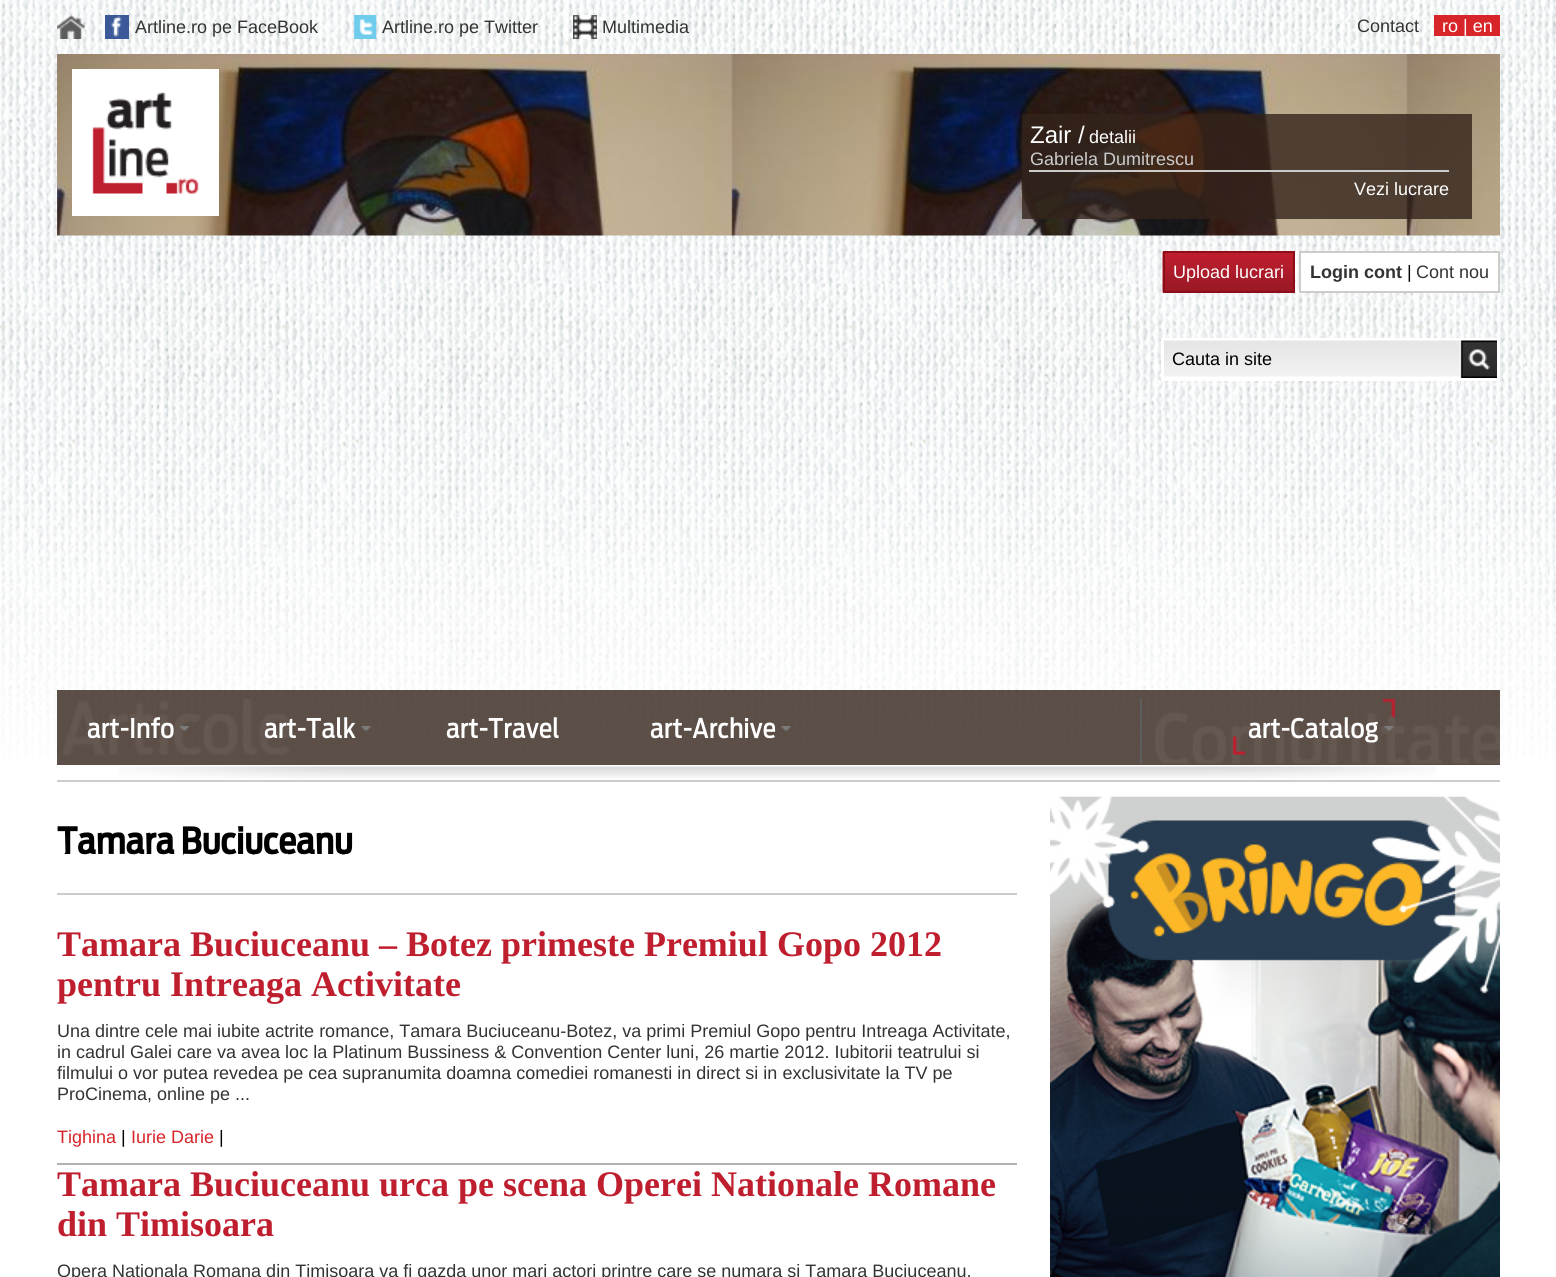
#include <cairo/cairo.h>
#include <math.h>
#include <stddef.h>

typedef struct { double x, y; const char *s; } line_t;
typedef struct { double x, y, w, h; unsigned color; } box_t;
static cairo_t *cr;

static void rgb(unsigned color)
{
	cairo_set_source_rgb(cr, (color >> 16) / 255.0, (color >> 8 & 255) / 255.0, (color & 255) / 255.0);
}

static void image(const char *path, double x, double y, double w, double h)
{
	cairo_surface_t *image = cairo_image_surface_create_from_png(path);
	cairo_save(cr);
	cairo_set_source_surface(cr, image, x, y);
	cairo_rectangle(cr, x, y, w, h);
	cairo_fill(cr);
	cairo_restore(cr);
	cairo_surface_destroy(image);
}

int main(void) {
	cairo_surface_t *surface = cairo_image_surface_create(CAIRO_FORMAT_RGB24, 1556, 1277);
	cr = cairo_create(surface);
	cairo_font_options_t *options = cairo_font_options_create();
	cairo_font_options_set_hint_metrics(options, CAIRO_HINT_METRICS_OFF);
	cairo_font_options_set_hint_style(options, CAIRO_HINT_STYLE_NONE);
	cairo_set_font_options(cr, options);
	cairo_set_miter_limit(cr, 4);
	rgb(0xffffff);
	cairo_paint(cr);
	image("img/1.png", 0, 0, 1556, 759);
	image("img/2.png", 57, 15, 29, 24);
	image("img/3.png", 105, 15, 24, 24);
	image("img/4.png", 353, 15, 24, 24);
	image("img/5.png", 573, 15, 24, 24);
	rgb(0xd82529);
	cairo_rectangle(cr, 1434, 15, 66, 21);
	cairo_fill(cr);
	image("img/6.png", 57, 54, 1443, 182);
	image("img/7.png", 72, 69, 147, 147);
	cairo_set_source_rgba(cr, 0.204, 0.137, 0.106, 0.8);
	cairo_rectangle(cr, 1022, 114, 450, 105);
	cairo_fill(cr);
	rgb(0xcecccb);
	cairo_rectangle(cr, 1029, 170, 420, 2);
	cairo_fill(cr);
	image("img/8.png", 1162, 250, 133, 43);
	cairo_rectangle(cr, 1164, 252, 130, 40);
	rgb(0x8d0e1a);
	cairo_stroke(cr);
	rgb(0xffffff);
	cairo_rectangle(cr, 1300, 252, 199, 40);
	cairo_fill_preserve(cr);
	rgb(0xcecccb);
	cairo_stroke(cr);
	rgb(0xffffff);
	cairo_rectangle(cr, 1161, 338, 339, 43);
	cairo_fill(cr);
	image("img/9.png", 1164, 340, 296, 37);
	image("img/10.png", 1460, 340, 37, 38);
	cairo_set_source_rgba(cr, 0.204, 0.137, 0.106, 0.8);
	cairo_rectangle(cr, 57, 690, 1083, 75);
	cairo_fill(cr);
	image("img/11.png", 62, 699, 228, 56);
	image("img/12.png", 180, 726, 9, 5);
	image("img/13.png", 361, 726, 10, 5);
	image("img/14.png", 781, 726, 10, 5);
	cairo_rectangle(cr, 1140, 690, 360, 75);
	cairo_fill(cr);
	image("img/15.png", 1155, 698, 345, 66);
	rgb(0x5d5d5d);
	cairo_rectangle(cr, 1140, 698, 2, 66);
	cairo_fill(cr);
	image("img/16.png", 1384, 726, 10, 5);
	image("img/17.png", 119, 766, 1317, 13);
	{
		static const box_t items[] = {
			{57, 780, 1443, 2, 0xcecccb},
			{57, 893, 960, 2, 0xcecccb},
			{57, 1163, 960, 2, 0xb2b2b2},
		};
		for (size_t i = 0; i < sizeof items / sizeof *items; i++) {
			rgb(items[i].color);
			cairo_rectangle(cr, items[i].x, items[i].y, items[i].w, items[i].h);
			cairo_fill(cr);
		}
	}
	image("img/18.png", 1050, 796, 450, 481);
	cairo_select_font_face(cr, "Liberation Sans", CAIRO_FONT_SLANT_NORMAL, CAIRO_FONT_WEIGHT_NORMAL);
	cairo_set_font_size(cr, 18);
	rgb(0x333333);
	{
		static const line_t items[] = {
			{135, 33, "Artline.ro pe FaceBook"},
			{382, 33, "Artline.ro pe Twitter"},
			{602, 33, "Multimedia"},
			{1357, 32, "Contact"},
		};
		for (size_t i = 0; i < sizeof items / sizeof *items; i++) {
			cairo_move_to(cr, items[i].x, items[i].y);
			cairo_show_text(cr, items[i].s);
		}
	}
	rgb(0xffffff);
	cairo_move_to(cr, 1442, 32);
	cairo_show_text(cr, "ro | en");
	cairo_set_font_size(cr, 24);
	cairo_move_to(cr, 1030, 143);
	cairo_show_text(cr, "Zair /");
	cairo_set_font_size(cr, 18);
	cairo_move_to(cr, 1089, 143);
	cairo_show_text(cr, "detalii");
	rgb(0xcccccc);
	cairo_move_to(cr, 1030, 165);
	cairo_show_text(cr, "Gabriela Dumitrescu");
	rgb(0xffffff);
	cairo_move_to(cr, 1354, 195);
	cairo_show_text(cr, "Vezi lucrare");
	cairo_move_to(cr, 1173, 278);
	cairo_show_text(cr, "Upload lucrari");
	cairo_select_font_face(cr, "Liberation Sans", CAIRO_FONT_SLANT_NORMAL, CAIRO_FONT_WEIGHT_BOLD);
	rgb(0x333333);
	cairo_move_to(cr, 1310, 278);
	cairo_show_text(cr, "Login cont");
	cairo_select_font_face(cr, "Liberation Sans", CAIRO_FONT_SLANT_NORMAL, CAIRO_FONT_WEIGHT_NORMAL);
	rgb(0x000000);
	cairo_move_to(cr, 1407, 278);
	cairo_show_text(cr, "|");
	rgb(0x333333);
	cairo_move_to(cr, 1416, 278);
	cairo_show_text(cr, "Cont nou");
	rgb(0x000000);
	cairo_move_to(cr, 1172, 365);
	cairo_show_text(cr, "Cauta in site");
	cairo_select_font_face(cr, "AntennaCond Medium", CAIRO_FONT_SLANT_NORMAL, CAIRO_FONT_WEIGHT_NORMAL);
	cairo_set_font_size(cr, 27);
	rgb(0xffffff);
	{
		static const line_t items[] = {
			{87, 738, "art-Info"},
			{264, 738, "art-Talk"},
			{446, 738, "art-Travel"},
			{650, 738, "art-Archive"},
			{1248, 738, "art-Catalog"},
		};
		for (size_t i = 0; i < sizeof items / sizeof *items; i++) {
			cairo_move_to(cr, items[i].x, items[i].y);
			cairo_show_text(cr, items[i].s);
		}
	}
	cairo_select_font_face(cr, "AntennaCond", CAIRO_FONT_SLANT_NORMAL, CAIRO_FONT_WEIGHT_BOLD);
	cairo_set_font_size(cr, 36);
	rgb(0x000000);
	cairo_move_to(cr, 57, 854);
	cairo_show_text(cr, "Tamara Buciuceanu");
	cairo_select_font_face(cr, "Liberation Serif", CAIRO_FONT_SLANT_NORMAL, CAIRO_FONT_WEIGHT_BOLD);
	rgb(0xbf1e2e);
	cairo_move_to(cr, 57, 956);
	cairo_show_text(cr, "Tamara Buciuceanu – Botez primeste Premiul Gopo 2012");
	cairo_move_to(cr, 57, 996);
	cairo_show_text(cr, "pentru Intreaga Activitate");
	cairo_select_font_face(cr, "Liberation Sans", CAIRO_FONT_SLANT_NORMAL, CAIRO_FONT_WEIGHT_NORMAL);
	cairo_set_font_size(cr, 18);
	rgb(0x333333);
	{
		static const line_t items[] = {
			{57, 1037, "Una dintre cele mai iubite actrite romance, Tamara Buciuceanu-Botez, va primi Premiul Gopo pentru Intreaga Activitate,"},
			{57, 1058, "in cadrul Galei care va avea loc la Platinum Bussiness & Convention Center luni, 26 martie 2012. Iubitorii teatrului si"},
			{57, 1079, "filmului o vor putea revedea pe cea supranumita doamna comediei romanesti in direct si in exclusivitate la TV pe"},
			{57, 1100, "ProCinema, online pe ..."},
		};
		for (size_t i = 0; i < sizeof items / sizeof *items; i++) {
			cairo_move_to(cr, items[i].x, items[i].y);
			cairo_show_text(cr, items[i].s);
		}
	}
	rgb(0xd82529);
	cairo_move_to(cr, 57, 1143);
	cairo_show_text(cr, "Tighina");
	rgb(0x000000);
	cairo_move_to(cr, 121, 1143);
	cairo_show_text(cr, "|");
	rgb(0xd82529);
	cairo_move_to(cr, 131, 1143);
	cairo_show_text(cr, "Iurie Darie");
	rgb(0x000000);
	cairo_move_to(cr, 219, 1143);
	cairo_show_text(cr, "|");
	cairo_select_font_face(cr, "Liberation Serif", CAIRO_FONT_SLANT_NORMAL, CAIRO_FONT_WEIGHT_BOLD);
	cairo_set_font_size(cr, 36);
	rgb(0xbf1e2e);
	cairo_move_to(cr, 57, 1196);
	cairo_show_text(cr, "Tamara Buciuceanu urca pe scena Operei Nationale Romane");
	cairo_move_to(cr, 57, 1236);
	cairo_show_text(cr, "din Timisoara");
	cairo_select_font_face(cr, "Liberation Sans", CAIRO_FONT_SLANT_NORMAL, CAIRO_FONT_WEIGHT_NORMAL);
	cairo_set_font_size(cr, 18);
	rgb(0x333333);
	cairo_move_to(cr, 57, 1277);
	cairo_show_text(cr, "Opera Nationala Romana din Timisoara va fi gazda unor mari actori printre care se numara si Tamara Buciuceanu,");
	cairo_surface_write_to_png(surface, "page.png");
	cairo_font_options_destroy(options);
	cairo_destroy(cr);
	cairo_surface_destroy(surface);
	return 0;
}
